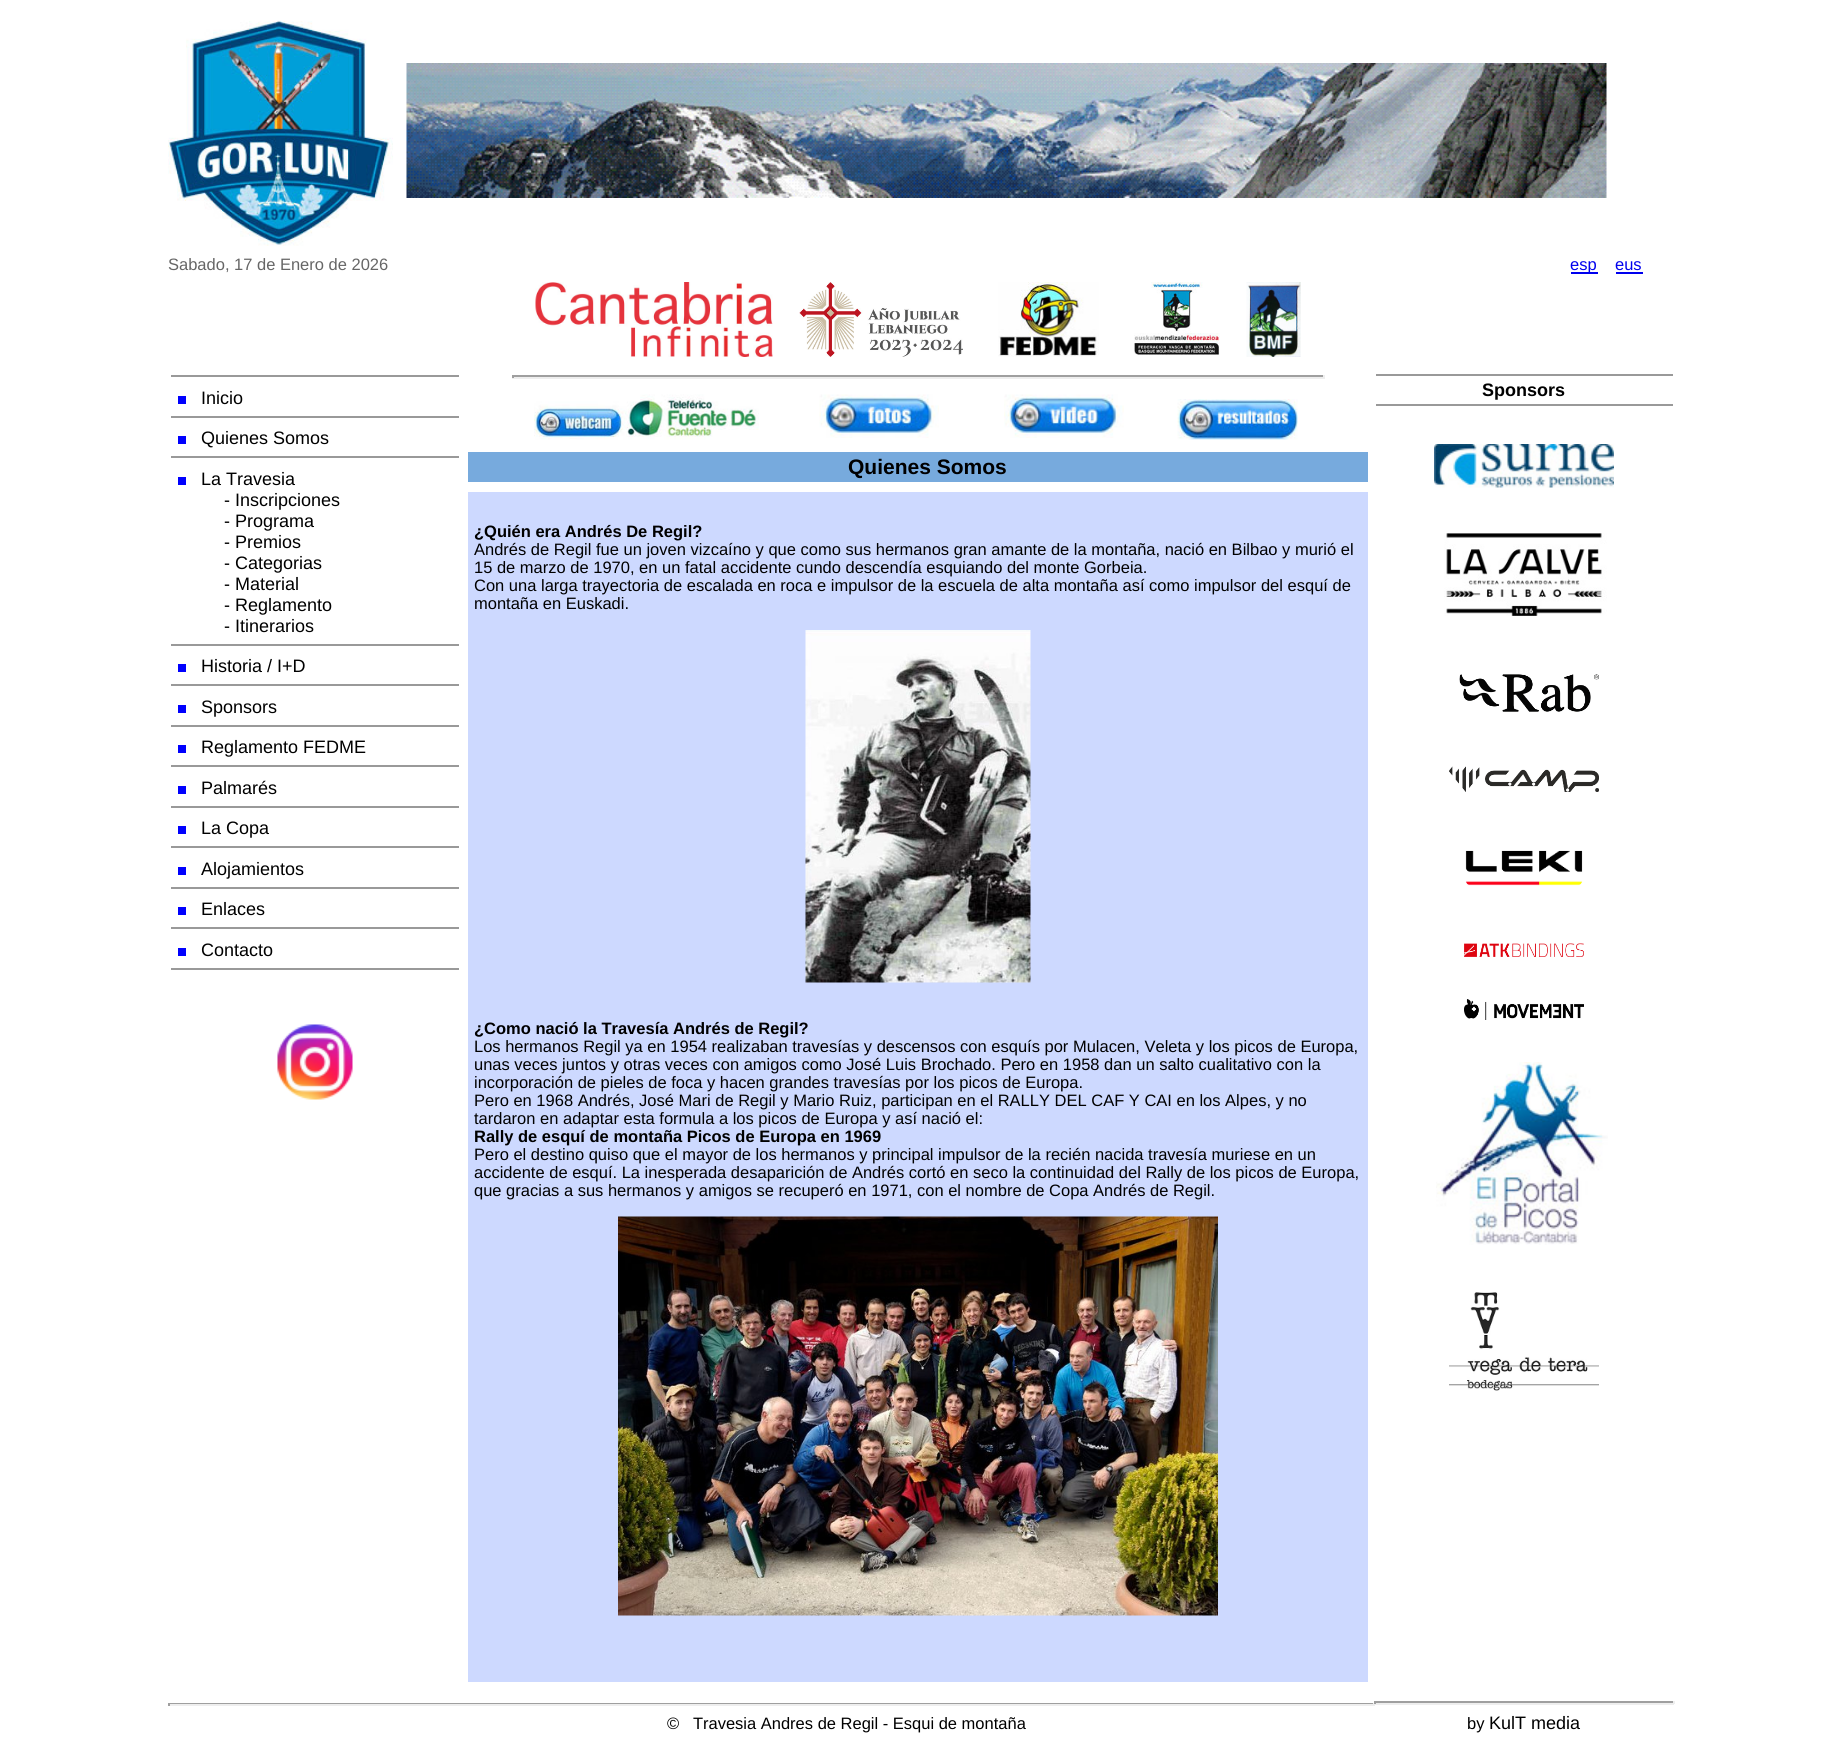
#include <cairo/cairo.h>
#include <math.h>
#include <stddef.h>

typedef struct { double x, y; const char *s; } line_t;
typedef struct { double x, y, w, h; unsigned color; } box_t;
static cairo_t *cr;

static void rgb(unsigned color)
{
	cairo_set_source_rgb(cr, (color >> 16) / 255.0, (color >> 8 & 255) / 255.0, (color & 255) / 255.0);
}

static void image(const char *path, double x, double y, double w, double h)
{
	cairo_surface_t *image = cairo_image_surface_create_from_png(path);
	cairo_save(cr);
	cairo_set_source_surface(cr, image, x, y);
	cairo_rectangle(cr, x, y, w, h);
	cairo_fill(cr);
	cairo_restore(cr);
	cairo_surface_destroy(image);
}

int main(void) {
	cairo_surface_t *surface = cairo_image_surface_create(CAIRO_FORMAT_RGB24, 1842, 1760);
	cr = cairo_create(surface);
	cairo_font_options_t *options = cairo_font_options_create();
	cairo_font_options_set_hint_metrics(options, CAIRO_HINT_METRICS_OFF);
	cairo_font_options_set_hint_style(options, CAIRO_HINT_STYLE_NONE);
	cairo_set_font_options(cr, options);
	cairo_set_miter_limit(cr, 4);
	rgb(0xffffff);
	cairo_paint(cr);
	image("img/1.png", 168, 20, 225, 226);
	image("img/2.png", 406, 63, 1201, 135);
	{
		static const box_t items[] = {
			{1571, 272, 27, 2, 0x0000ee},
			{1616, 272, 27, 2, 0x0000ee},
			{171, 375, 288, 2, 0x999999},
			{171, 416, 288, 2, 0x999999},
			{178, 396, 8, 8, 0x0000fe},
			{171, 456, 288, 2, 0x999999},
			{178, 436, 8, 8, 0x0000fe},
			{171, 644, 288, 2, 0x999999},
			{178, 477, 8, 8, 0x0000fe},
			{171, 684, 288, 2, 0x999999},
			{178, 664, 8, 8, 0x0000fe},
			{171, 725, 288, 2, 0x999999},
			{178, 705, 8, 8, 0x0000fe},
			{171, 765, 288, 2, 0x999999},
			{178, 745, 8, 8, 0x0000fe},
			{171, 806, 288, 2, 0x999999},
			{178, 786, 8, 8, 0x0000fe},
			{171, 846, 288, 2, 0x999999},
			{178, 826, 8, 8, 0x0000fe},
			{171, 887, 288, 2, 0x999999},
			{178, 867, 8, 8, 0x0000fe},
			{171, 927, 288, 2, 0x999999},
			{178, 907, 8, 8, 0x0000fe},
			{171, 968, 288, 2, 0x999999},
			{178, 948, 8, 8, 0x0000fe},
		};
		for (size_t i = 0; i < sizeof items / sizeof *items; i++) {
			rgb(items[i].color);
			cairo_rectangle(cr, items[i].x, items[i].y, items[i].w, items[i].h);
			cairo_fill(cr);
		}
	}
	image("img/3.png", 277, 1024, 76, 76);
	image("img/4.png", 535, 282, 238, 75);
	image("img/5.png", 799, 282, 164, 75);
	image("img/6.png", 998, 282, 101, 75);
	image("img/7.png", 1134, 282, 86, 73);
	image("img/8.png", 1246, 282, 55, 75);
	{
		static const box_t items[] = {
			{512, 375, 813, 2, 0x9f9f9f},
			{1323, 375, 2, 3, 0xeeeeee},
			{512, 377, 813, 2, 0xeeeeee},
			{512, 375, 2, 3, 0x9f9f9f},
		};
		for (size_t i = 0; i < sizeof items / sizeof *items; i++) {
			rgb(items[i].color);
			cairo_rectangle(cr, items[i].x, items[i].y, items[i].w, items[i].h);
			cairo_fill(cr);
		}
	}
	image("img/9.png", 534, 394, 225, 46);
	image("img/10.png", 819, 394, 120, 44);
	image("img/11.png", 1004, 394, 120, 44);
	image("img/12.png", 1177, 399, 121, 41);
	rgb(0x77aadd);
	cairo_rectangle(cr, 468, 452, 900, 30);
	cairo_fill(cr);
	rgb(0xcdd9ff);
	cairo_rectangle(cr, 468, 492, 900, 1190);
	cairo_fill(cr);
	image("img/13.png", 805, 630, 226, 353);
	image("img/14.png", 618, 1216, 600, 400);
	rgb(0x999999);
	cairo_rectangle(cr, 1376, 374, 297, 2);
	cairo_fill(cr);
	cairo_rectangle(cr, 1376, 404, 297, 2);
	cairo_fill(cr);
	image("img/15.png", 1434, 444, 180, 44);
	image("img/16.png", 1444, 533, 163, 83);
	image("img/17.png", 1459, 674, 140, 38);
	image("img/18.png", 1449, 766, 150, 26);
	image("img/19.png", 1465, 850, 118, 36);
	image("img/20.png", 1464, 943, 120, 14);
	image("img/21.png", 1464, 999, 120, 21);
	image("img/22.png", 1436, 1062, 172, 183);
	image("img/23.png", 1449, 1292, 150, 99);
	{
		static const box_t items[] = {
			{168, 1703, 1206, 1, 0x9f9f9f},
			{1373, 1703, 2, 3, 0xeeeeee},
			{168, 1704, 1206, 2, 0xeeeeee},
			{168, 1703, 2, 3, 0x9f9f9f},
			{1374, 1701, 300, 2, 0x9f9f9f},
			{1673, 1701, 2, 3, 0xeeeeee},
			{1374, 1703, 300, 2, 0xeeeeee},
			{1374, 1701, 2, 3, 0x9f9f9f},
		};
		for (size_t i = 0; i < sizeof items / sizeof *items; i++) {
			rgb(items[i].color);
			cairo_rectangle(cr, items[i].x, items[i].y, items[i].w, items[i].h);
			cairo_fill(cr);
		}
	}
	cairo_select_font_face(cr, "Liberation Sans", CAIRO_FONT_SLANT_NORMAL, CAIRO_FONT_WEIGHT_NORMAL);
	cairo_set_font_size(cr, 16.5);
	rgb(0x666666);
	cairo_move_to(cr, 168, 270);
	cairo_show_text(cr, "Sabado, 17 de Enero de 2026");
	rgb(0x0000ee);
	cairo_move_to(cr, 1570, 270);
	cairo_show_text(cr, "esp");
	cairo_move_to(cr, 1615, 270);
	cairo_show_text(cr, "eus");
	cairo_set_font_size(cr, 18);
	rgb(0x000000);
	{
		static const line_t items[] = {
			{201, 404, "Inicio"},
			{201, 444, "Quienes Somos"},
			{201, 485, "La Travesia"},
			{224, 506, "- Inscripciones"},
			{224, 527, "- Programa"},
			{224, 548, "- Premios"},
			{224, 569, "- Categorias"},
			{224, 590, "- Material"},
			{224, 611, "- Reglamento"},
			{224, 632, "- Itinerarios"},
			{201, 672, "Historia / I+D"},
			{201, 713, "Sponsors"},
			{201, 753, "Reglamento FEDME"},
			{201, 794, "Palmarés"},
			{201, 834, "La Copa"},
			{201, 875, "Alojamientos"},
			{201, 915, "Enlaces"},
			{201, 956, "Contacto"},
		};
		for (size_t i = 0; i < sizeof items / sizeof *items; i++) {
			cairo_move_to(cr, items[i].x, items[i].y);
			cairo_show_text(cr, items[i].s);
		}
	}
	cairo_select_font_face(cr, "Liberation Sans", CAIRO_FONT_SLANT_NORMAL, CAIRO_FONT_WEIGHT_BOLD);
	cairo_set_font_size(cr, 21);
	cairo_move_to(cr, 848, 474);
	cairo_show_text(cr, "Quienes Somos");
	cairo_set_font_size(cr, 16.5);
	cairo_move_to(cr, 474, 537);
	cairo_show_text(cr, "¿Quién era Andrés De Regil?");
	cairo_select_font_face(cr, "Liberation Sans", CAIRO_FONT_SLANT_NORMAL, CAIRO_FONT_WEIGHT_NORMAL);
	{
		static const line_t items[] = {
			{474, 555, "Andrés de Regil fue un joven vizcaíno y que como sus hermanos gran amante de la montaña, nació en Bilbao y murió el"},
			{474, 573, "15 de marzo de 1970, en un fatal accidente cundo descendía esquiando del monte Gorbeia."},
			{474, 591, "Con una larga trayectoria de escalada en roca e impulsor de la escuela de alta montaña así como impulsor del esquí de"},
			{474, 609, "montaña en Euskadi."},
		};
		for (size_t i = 0; i < sizeof items / sizeof *items; i++) {
			cairo_move_to(cr, items[i].x, items[i].y);
			cairo_show_text(cr, items[i].s);
		}
	}
	cairo_select_font_face(cr, "Liberation Sans", CAIRO_FONT_SLANT_NORMAL, CAIRO_FONT_WEIGHT_BOLD);
	cairo_move_to(cr, 474, 1034);
	cairo_show_text(cr, "¿Como nació la Travesía Andrés de Regil?");
	cairo_select_font_face(cr, "Liberation Sans", CAIRO_FONT_SLANT_NORMAL, CAIRO_FONT_WEIGHT_NORMAL);
	{
		static const line_t items[] = {
			{474, 1052, "Los hermanos Regil ya en 1954 realizaban travesías y descensos con esquís por Mulacen, Veleta y los picos de Europa,"},
			{474, 1070, "unas veces juntos y otras veces con amigos como José Luis Brochado. Pero en 1958 dan un salto cualitativo con la"},
			{474, 1088, "incorporación de pieles de foca y hacen grandes travesías por los picos de Europa."},
			{474, 1106, "Pero en 1968 Andrés, José Mari de Regil y Mario Ruiz, participan en el RALLY DEL CAF Y CAI en los Alpes, y no"},
			{474, 1124, "tardaron en adaptar esta formula a los picos de Europa y así nació el:"},
		};
		for (size_t i = 0; i < sizeof items / sizeof *items; i++) {
			cairo_move_to(cr, items[i].x, items[i].y);
			cairo_show_text(cr, items[i].s);
		}
	}
	cairo_select_font_face(cr, "Liberation Sans", CAIRO_FONT_SLANT_NORMAL, CAIRO_FONT_WEIGHT_BOLD);
	cairo_move_to(cr, 474, 1142);
	cairo_show_text(cr, "Rally de esquí de montaña Picos de Europa en 1969");
	cairo_select_font_face(cr, "Liberation Sans", CAIRO_FONT_SLANT_NORMAL, CAIRO_FONT_WEIGHT_NORMAL);
	{
		static const line_t items[] = {
			{474, 1160, "Pero el destino quiso que el mayor de los hermanos y principal impulsor de la recién nacida travesía muriese en un"},
			{474, 1178, "accidente de esquí. La inesperada desaparición de Andrés cortó en seco la continuidad del Rally de los picos de Europa,"},
			{474, 1196, "que gracias a sus hermanos y amigos se recuperó en 1971, con el nombre de Copa Andrés de Regil."},
		};
		for (size_t i = 0; i < sizeof items / sizeof *items; i++) {
			cairo_move_to(cr, items[i].x, items[i].y);
			cairo_show_text(cr, items[i].s);
		}
	}
	cairo_select_font_face(cr, "Liberation Sans", CAIRO_FONT_SLANT_NORMAL, CAIRO_FONT_WEIGHT_BOLD);
	cairo_set_font_size(cr, 18);
	cairo_move_to(cr, 1482, 396);
	cairo_show_text(cr, "Sponsors");
	cairo_select_font_face(cr, "Liberation Sans", CAIRO_FONT_SLANT_NORMAL, CAIRO_FONT_WEIGHT_NORMAL);
	cairo_set_font_size(cr, 16.5);
	cairo_move_to(cr, 667, 1729);
	cairo_show_text(cr, "©   Travesia Andres de Regil - Esqui de montaña");
	cairo_move_to(cr, 1467, 1729);
	cairo_show_text(cr, "by");
	cairo_set_font_size(cr, 18);
	cairo_move_to(cr, 1489, 1729);
	cairo_show_text(cr, "KulT media");
	cairo_surface_write_to_png(surface, "page.png");
	cairo_font_options_destroy(options);
	cairo_destroy(cr);
	cairo_surface_destroy(surface);
	return 0;
}
